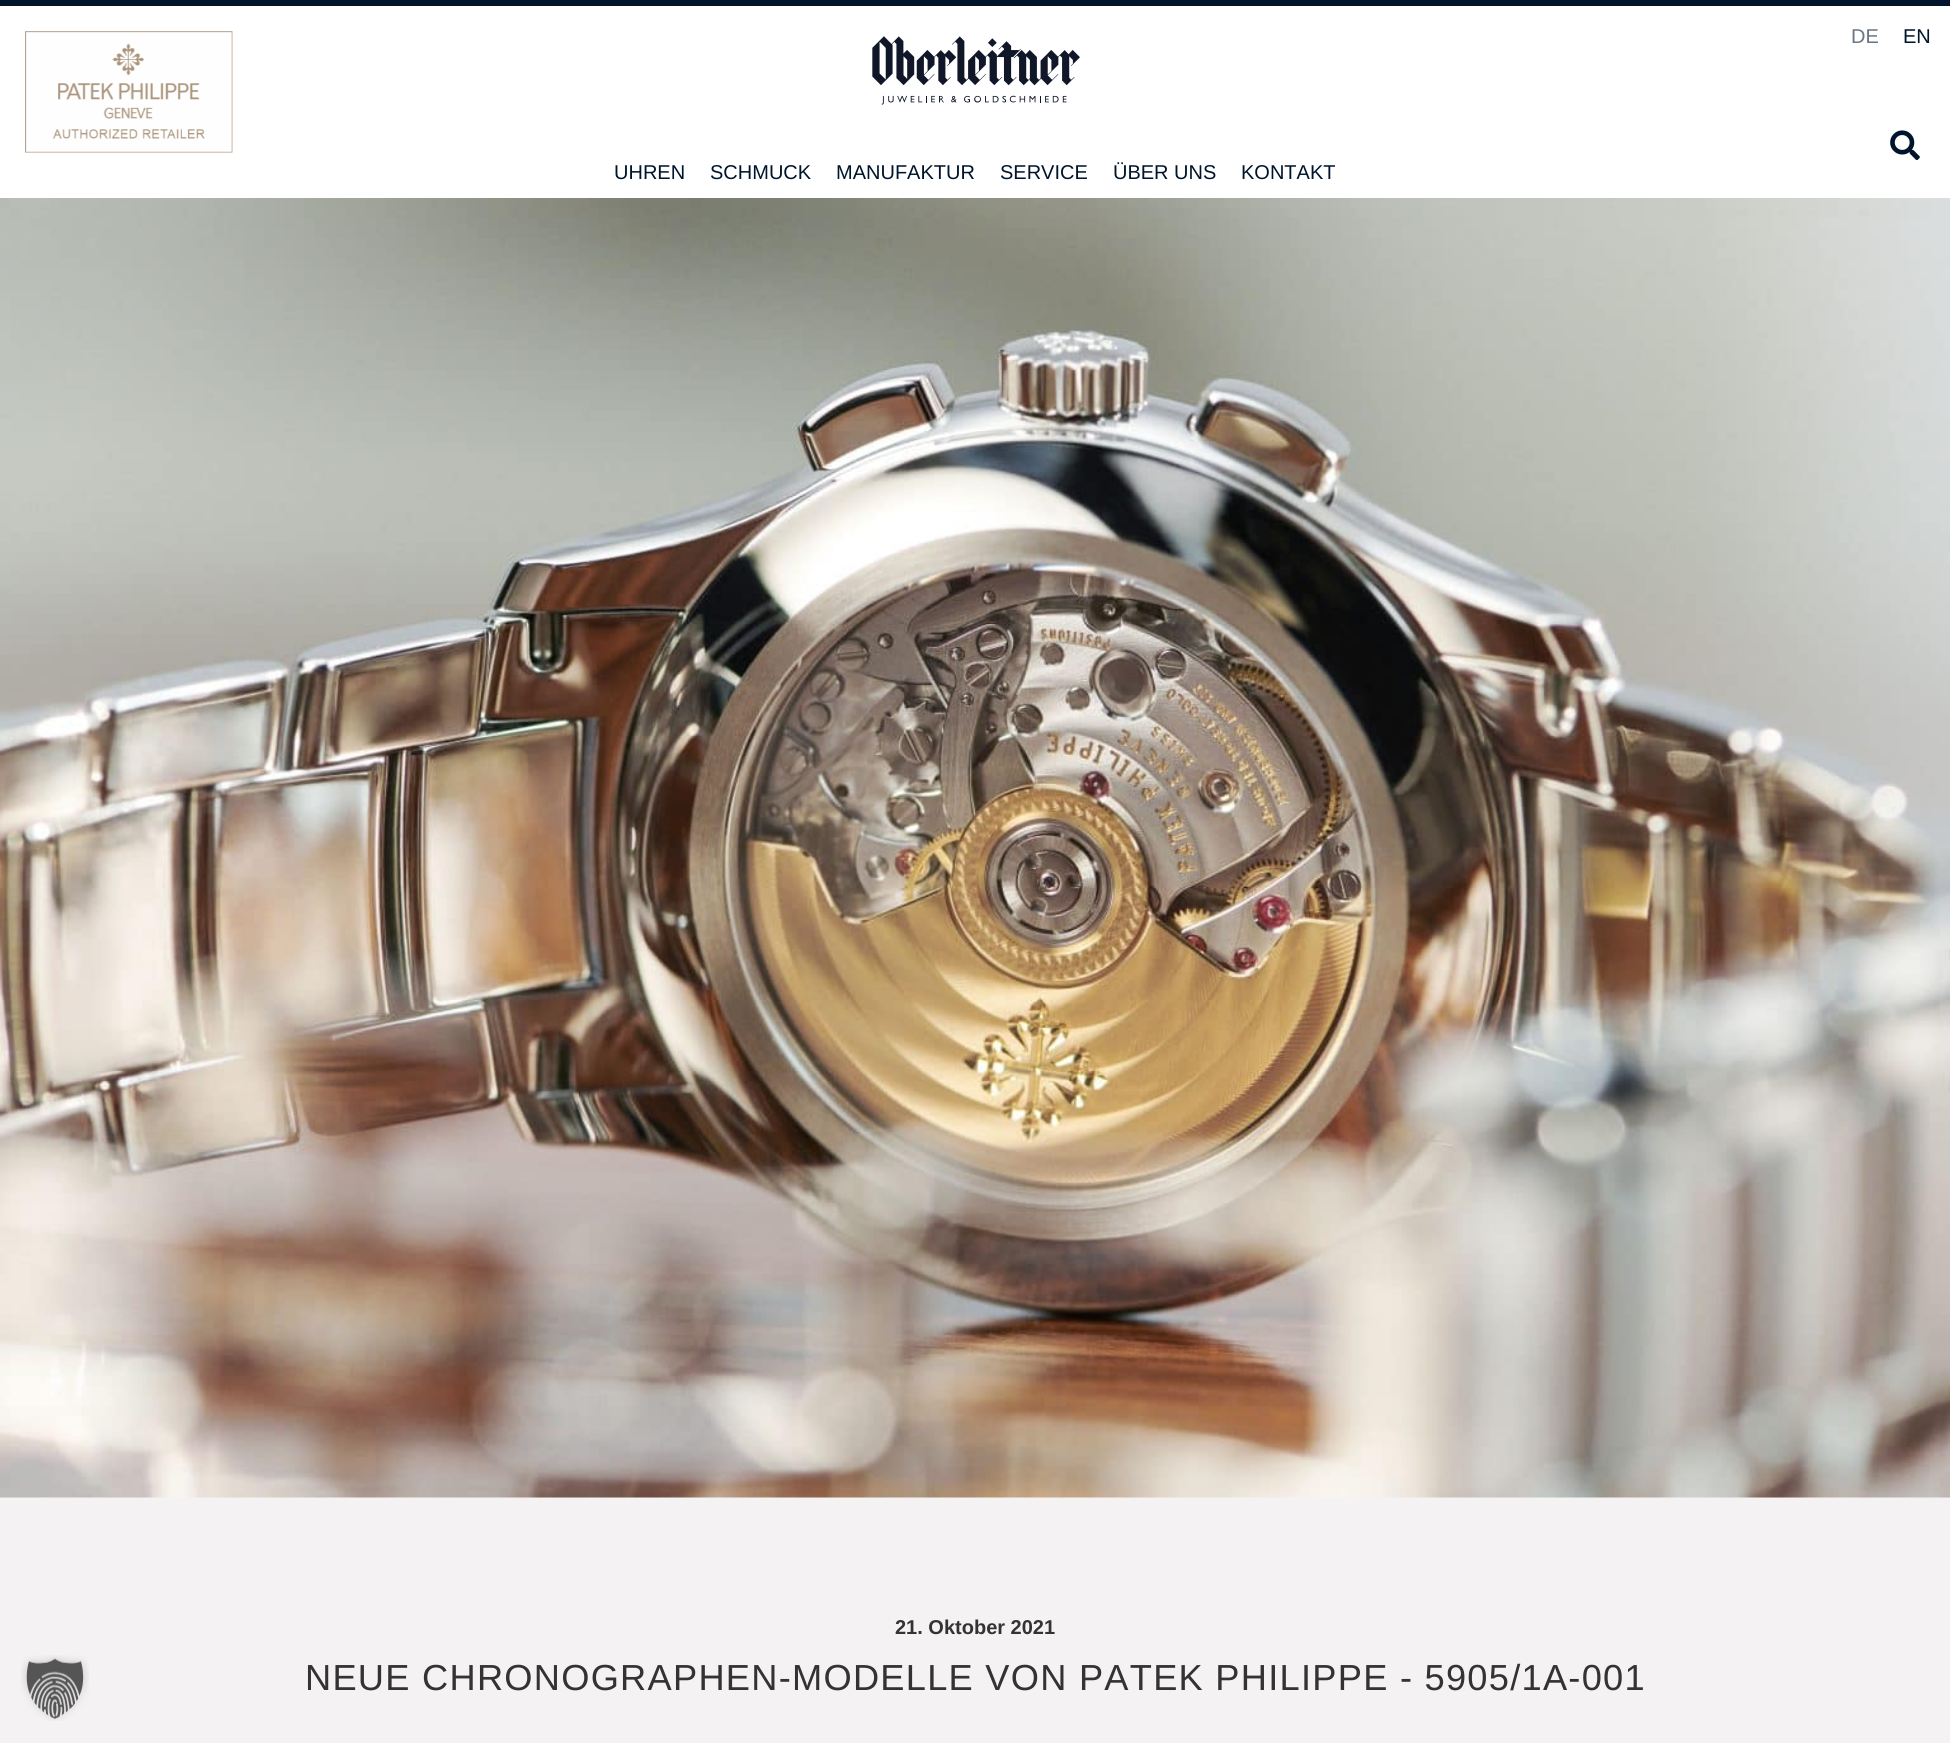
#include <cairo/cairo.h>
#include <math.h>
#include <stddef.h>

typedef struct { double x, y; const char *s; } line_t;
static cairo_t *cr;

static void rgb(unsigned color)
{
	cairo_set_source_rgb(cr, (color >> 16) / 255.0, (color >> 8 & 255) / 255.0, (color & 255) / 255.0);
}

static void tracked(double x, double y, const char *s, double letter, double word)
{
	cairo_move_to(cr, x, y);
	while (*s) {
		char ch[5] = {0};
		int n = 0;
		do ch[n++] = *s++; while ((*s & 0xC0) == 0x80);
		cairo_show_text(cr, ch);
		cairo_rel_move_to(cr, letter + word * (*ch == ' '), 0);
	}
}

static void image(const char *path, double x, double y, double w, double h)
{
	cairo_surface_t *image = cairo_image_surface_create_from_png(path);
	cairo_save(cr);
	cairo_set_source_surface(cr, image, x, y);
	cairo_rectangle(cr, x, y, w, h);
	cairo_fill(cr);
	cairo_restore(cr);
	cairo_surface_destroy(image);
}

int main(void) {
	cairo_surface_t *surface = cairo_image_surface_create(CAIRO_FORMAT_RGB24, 1950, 1743);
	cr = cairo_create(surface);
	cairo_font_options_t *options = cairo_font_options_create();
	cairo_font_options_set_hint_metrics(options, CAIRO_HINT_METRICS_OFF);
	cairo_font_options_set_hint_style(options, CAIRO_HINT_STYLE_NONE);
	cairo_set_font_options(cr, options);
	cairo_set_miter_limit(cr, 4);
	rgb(0xf4f2f2);
	cairo_paint(cr);
	rgb(0xffffff);
	cairo_rectangle(cr, 0, 6, 1950, 192);
	cairo_fill(cr);
	rgb(0x00152b);
	cairo_rectangle(cr, 0, 0, 1950, 6);
	cairo_fill(cr);
	image("img/1.png", 25, 31, 208, 122);
	image("img/2.png", 872, 36, 208, 69);
	image("img/3.png", 1890, 130, 30, 31);
	image("img/4.png", 21, 1655, 68, 66);
	image("img/5.png", 0, 198, 1950, 1300);
	cairo_select_font_face(cr, "Liberation Sans", CAIRO_FONT_SLANT_NORMAL, CAIRO_FONT_WEIGHT_NORMAL);
	cairo_set_font_size(cr, 20);
	rgb(0x6b7784);
	cairo_move_to(cr, 1851, 43);
	cairo_show_text(cr, "DE");
	rgb(0x00152b);
	{
		static const line_t items[] = {
			{1903, 43, "EN"},
			{614, 179, "UHREN"},
			{710, 179, "SCHMUCK"},
			{836, 179, "MANUFAKTUR"},
			{1000, 179, "SERVICE"},
			{1113, 179, "ÜBER UNS"},
			{1241, 179, "KONTAKT"},
		};
		for (size_t i = 0; i < sizeof items / sizeof *items; i++) {
			cairo_move_to(cr, items[i].x, items[i].y);
			cairo_show_text(cr, items[i].s);
		}
	}
	cairo_select_font_face(cr, "Liberation Sans", CAIRO_FONT_SLANT_NORMAL, CAIRO_FONT_WEIGHT_BOLD);
	rgb(0x333333);
	cairo_move_to(cr, 895, 1634);
	cairo_show_text(cr, "21. Oktober 2021");
	cairo_select_font_face(cr, "Liberation Sans", CAIRO_FONT_SLANT_NORMAL, CAIRO_FONT_WEIGHT_NORMAL);
	cairo_set_font_size(cr, 36.25);
	tracked(305, 1690, "NEUE CHRONOGRAPHEN-MODELLE VON PATEK PHILIPPE - 5905/1A-001", 1.25, 0);
	cairo_surface_write_to_png(surface, "page.png");
	cairo_font_options_destroy(options);
	cairo_destroy(cr);
	cairo_surface_destroy(surface);
	return 0;
}
